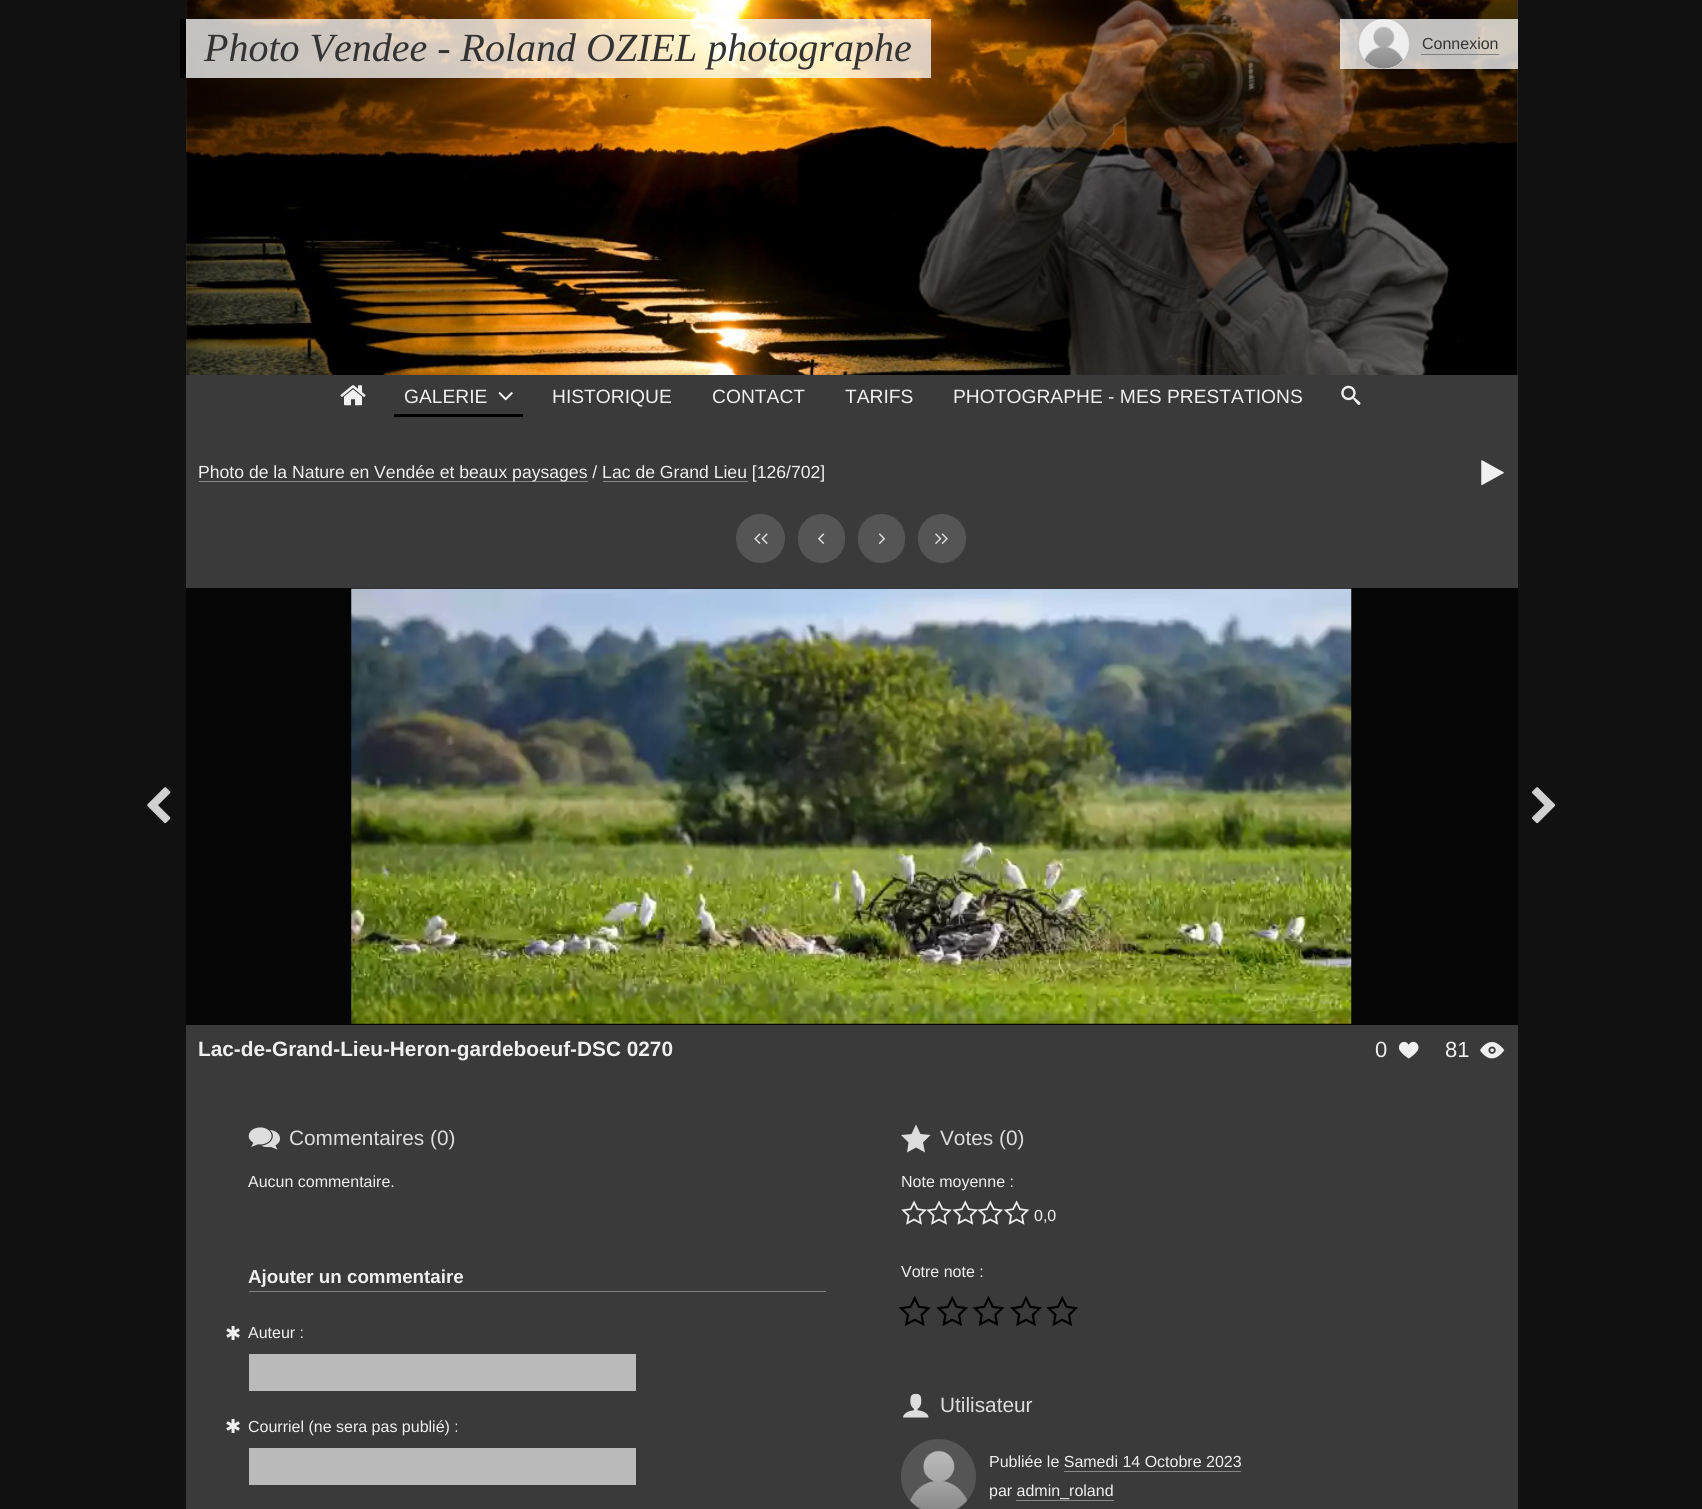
#include <cairo/cairo.h>
#include <math.h>
#include <stddef.h>

typedef struct { double x, y; const char *s; } line_t;
typedef struct { double x, y, w, h; unsigned color; } box_t;
static cairo_t *cr;

static void rgb(unsigned color)
{
	cairo_set_source_rgb(cr, (color >> 16) / 255.0, (color >> 8 & 255) / 255.0, (color & 255) / 255.0);
}

static void rrect(double x, double y, double w, double h, double r)
{
	cairo_new_sub_path(cr);
	cairo_arc(cr, x + w - r, y + h - r, r, 0, M_PI / 2);
	cairo_arc(cr, x + r, y + h - r, r, M_PI / 2, M_PI);
	cairo_arc(cr, x + r, y + r, r, M_PI, 1.5 * M_PI);
	cairo_arc(cr, x + w - r, y + r, r, 1.5 * M_PI, 2 * M_PI);
	cairo_close_path(cr);
}

static void image(const char *path, double x, double y, double w, double h)
{
	cairo_surface_t *image = cairo_image_surface_create_from_png(path);
	cairo_save(cr);
	cairo_set_source_surface(cr, image, x, y);
	cairo_rectangle(cr, x, y, w, h);
	cairo_fill(cr);
	cairo_restore(cr);
	cairo_surface_destroy(image);
}

int main(void) {
	cairo_surface_t *surface = cairo_image_surface_create(CAIRO_FORMAT_RGB24, 1702, 1509);
	cr = cairo_create(surface);
	cairo_font_options_t *options = cairo_font_options_create();
	cairo_font_options_set_hint_metrics(options, CAIRO_HINT_METRICS_OFF);
	cairo_font_options_set_hint_style(options, CAIRO_HINT_STYLE_NONE);
	cairo_set_font_options(cr, options);
	cairo_set_miter_limit(cr, 4);
	rgb(0x111111);
	cairo_paint(cr);
	rgb(0x3a3a3a);
	cairo_rectangle(cr, 186, 0, 1332, 1509);
	cairo_fill(cr);
	image("img/1.png", 186, 0, 1332, 375);
	cairo_set_source_rgba(cr, 1, 1, 1, 0.75);
	cairo_rectangle(cr, 186, 19, 745, 59);
	cairo_fill(cr);
	rgb(0x000000);
	cairo_rectangle(cr, 180, 19, 6, 59);
	cairo_fill(cr);
	cairo_set_source_rgba(cr, 1, 1, 1, 0.75);
	cairo_rectangle(cr, 1340, 19, 178, 50);
	cairo_fill(cr);
	rgb(0xeeeeee);
	cairo_arc(cr, 1384, 44, 25, 0, 2 * M_PI);
	cairo_fill(cr);
	image("img/2.png", 1364, 26, 39, 43);
	rgb(0x808080);
	cairo_rectangle(cr, 1421, 54, 78, 1);
	cairo_fill(cr);
	image("img/3.png", 340, 385, 26, 21);
	rgb(0x000000);
	cairo_rectangle(cr, 394, 414, 129, 3);
	cairo_fill(cr);
	image("img/4.png", 498, 392, 15, 9);
	image("img/5.png", 1341, 385, 20, 20);
	rgb(0x888888);
	cairo_rectangle(cr, 199, 481, 389, 1);
	cairo_fill(cr);
	image("img/6.png", 1481, 460, 23, 26);
	rgb(0x555555);
	cairo_arc(cr, 760.5, 538.5, 24.5, 0, 2 * M_PI);
	cairo_fill(cr);
	image("img/7.png", 754, 533, 14, 11);
	rrect(798, 514, 47, 49, 23.5);
	cairo_fill(cr);
	image("img/8.png", 818, 533, 7, 11);
	rrect(858, 514, 47, 49, 23.5);
	cairo_fill(cr);
	image("img/9.png", 878, 533, 8, 11);
	rrect(918, 514, 48, 49, 24);
	cairo_fill(cr);
	image("img/10.png", 935, 533, 13, 11);
	rgb(0x050505);
	cairo_rectangle(cr, 186, 588, 1332, 437);
	cairo_fill(cr);
	image("img/11.png", 147, 787, 24, 37);
	image("img/12.png", 351, 588, 1001, 436);
	image("img/13.png", 1532, 787, 24, 37);
	image("img/14.png", 1398, 1041, 21, 18);
	image("img/15.png", 1480, 1042, 25, 17);
	image("img/16.png", 248, 1127, 32, 23);
	{
		static const box_t items[] = {
			{249, 1291, 577, 1, 0x808080},
			{249, 1354, 387, 37, 0xbababa},
			{249, 1448, 387, 37, 0xbababa},
		};
		for (size_t i = 0; i < sizeof items / sizeof *items; i++) {
			rgb(items[i].color);
			cairo_rectangle(cr, items[i].x, items[i].y, items[i].w, items[i].h);
			cairo_fill(cr);
		}
	}
	rgb(0xdddddd);
	cairo_new_path(cr);
	cairo_move_to(cr, 930.5, 1135);
	cairo_line_to(cr, 920.5, 1134);
	cairo_line_to(cr, 916, 1124.5);
	cairo_line_to(cr, 911.5, 1134);
	cairo_line_to(cr, 901, 1135);
	cairo_line_to(cr, 908.5, 1142.5);
	cairo_line_to(cr, 907, 1152.5);
	cairo_line_to(cr, 916, 1147.5);
	cairo_line_to(cr, 925, 1152.5);
	cairo_line_to(cr, 923, 1142.5);
	cairo_close_path(cr);
	cairo_fill(cr);
	image("img/17.png", 901, 1200, 26, 25);
	image("img/18.png", 926, 1200, 26, 25);
	image("img/19.png", 952, 1200, 26, 25);
	image("img/20.png", 977, 1200, 26, 25);
	image("img/21.png", 1003, 1200, 27, 25);
	image("img/22.png", 899, 1296, 32, 30);
	image("img/23.png", 936, 1296, 32, 30);
	image("img/24.png", 972, 1296, 33, 30);
	image("img/25.png", 1010, 1296, 32, 30);
	image("img/23.png", 1046, 1296, 32, 30);
	image("img/26.png", 903, 1393, 26, 25);
	rgb(0x555555);
	cairo_arc(cr, 938.5, 1476.5, 37.5, 0, 2 * M_PI);
	cairo_fill(cr);
	image("img/27.png", 910, 1450, 57, 59);
	rgb(0x888888);
	cairo_rectangle(cr, 1064, 1471, 177, 1);
	cairo_fill(cr);
	cairo_rectangle(cr, 1016, 1500, 98, 1);
	cairo_fill(cr);
	cairo_select_font_face(cr, "Liberation Serif", CAIRO_FONT_SLANT_ITALIC, CAIRO_FONT_WEIGHT_NORMAL);
	cairo_set_font_size(cr, 40);
	rgb(0x333333);
	cairo_move_to(cr, 204, 61);
	cairo_show_text(cr, "Photo Vendee - Roland OZIEL photographe");
	cairo_select_font_face(cr, "Liberation Sans", CAIRO_FONT_SLANT_NORMAL, CAIRO_FONT_WEIGHT_NORMAL);
	cairo_set_font_size(cr, 16);
	cairo_move_to(cr, 1422, 49);
	cairo_show_text(cr, "Connexion");
	cairo_set_font_size(cr, 19.25);
	rgb(0xf0f0f0);
	{
		static const line_t items[] = {
			{404, 403, "GALERIE"},
			{552, 403, "HISTORIQUE"},
			{712, 403, "CONTACT"},
			{845, 403, "TARIFS"},
			{953, 403, "PHOTOGRAPHE - MES PRESTATIONS"},
		};
		for (size_t i = 0; i < sizeof items / sizeof *items; i++) {
			cairo_move_to(cr, items[i].x, items[i].y);
			cairo_show_text(cr, items[i].s);
		}
	}
	cairo_set_font_size(cr, 17.6);
	cairo_move_to(cr, 198, 478);
	cairo_show_text(cr, "Photo de la Nature en Vendée et beaux paysages / Lac de Grand Lieu [126/702]");
	rgb(0x888888);
	cairo_rectangle(cr, 603, 481, 145, 1);
	cairo_fill(cr);
	cairo_select_font_face(cr, "Liberation Sans", CAIRO_FONT_SLANT_NORMAL, CAIRO_FONT_WEIGHT_BOLD);
	cairo_set_font_size(cr, 20.8);
	rgb(0xf0f0f0);
	cairo_move_to(cr, 198, 1056);
	cairo_show_text(cr, "Lac-de-Grand-Lieu-Heron-gardeboeuf-DSC 0270");
	cairo_select_font_face(cr, "Liberation Sans", CAIRO_FONT_SLANT_NORMAL, CAIRO_FONT_WEIGHT_NORMAL);
	cairo_set_font_size(cr, 22);
	cairo_move_to(cr, 1375, 1057);
	cairo_show_text(cr, "0");
	cairo_move_to(cr, 1445, 1057);
	cairo_show_text(cr, "81");
	cairo_set_font_size(cr, 20.8);
	rgb(0xdddddd);
	cairo_move_to(cr, 289, 1145);
	cairo_show_text(cr, "Commentaires (0)");
	cairo_set_font_size(cr, 16);
	rgb(0xf0f0f0);
	cairo_move_to(cr, 248, 1187);
	cairo_show_text(cr, "Aucun commentaire.");
	cairo_select_font_face(cr, "Liberation Sans", CAIRO_FONT_SLANT_NORMAL, CAIRO_FONT_WEIGHT_BOLD);
	cairo_set_font_size(cr, 18.75);
	cairo_move_to(cr, 248, 1283);
	cairo_show_text(cr, "Ajouter un commentaire");
	cairo_select_font_face(cr, "DejaVu Sans", CAIRO_FONT_SLANT_NORMAL, CAIRO_FONT_WEIGHT_NORMAL);
	cairo_set_font_size(cr, 19.25);
	cairo_move_to(cr, 225, 1340);
	cairo_show_text(cr, "✱");
	cairo_select_font_face(cr, "Liberation Sans", CAIRO_FONT_SLANT_NORMAL, CAIRO_FONT_WEIGHT_NORMAL);
	cairo_set_font_size(cr, 16);
	cairo_move_to(cr, 248, 1338);
	cairo_show_text(cr, "Auteur :");
	cairo_select_font_face(cr, "DejaVu Sans", CAIRO_FONT_SLANT_NORMAL, CAIRO_FONT_WEIGHT_NORMAL);
	cairo_set_font_size(cr, 19.25);
	cairo_move_to(cr, 225, 1433);
	cairo_show_text(cr, "✱");
	cairo_select_font_face(cr, "Liberation Sans", CAIRO_FONT_SLANT_NORMAL, CAIRO_FONT_WEIGHT_NORMAL);
	cairo_set_font_size(cr, 16);
	cairo_move_to(cr, 248, 1432);
	cairo_show_text(cr, "Courriel (ne sera pas publié) :");
	cairo_set_font_size(cr, 20.8);
	rgb(0xdddddd);
	cairo_move_to(cr, 940, 1145);
	cairo_show_text(cr, "Votes (0)");
	cairo_set_font_size(cr, 16);
	rgb(0xf0f0f0);
	{
		static const line_t items[] = {
			{901, 1187, "Note moyenne :"},
			{1034, 1221, "0,0"},
			{901, 1277, "Votre note :"},
		};
		for (size_t i = 0; i < sizeof items / sizeof *items; i++) {
			cairo_move_to(cr, items[i].x, items[i].y);
			cairo_show_text(cr, items[i].s);
		}
	}
	cairo_set_font_size(cr, 20.8);
	rgb(0xdddddd);
	cairo_move_to(cr, 940, 1412);
	cairo_show_text(cr, "Utilisateur");
	cairo_set_font_size(cr, 16);
	rgb(0xf0f0f0);
	cairo_move_to(cr, 989, 1467);
	cairo_show_text(cr, "Publiée le Samedi 14 Octobre 2023");
	cairo_move_to(cr, 989, 1496);
	cairo_show_text(cr, "par admin_roland");
	cairo_surface_write_to_png(surface, "page.png");
	cairo_font_options_destroy(options);
	cairo_destroy(cr);
	cairo_surface_destroy(surface);
	return 0;
}
